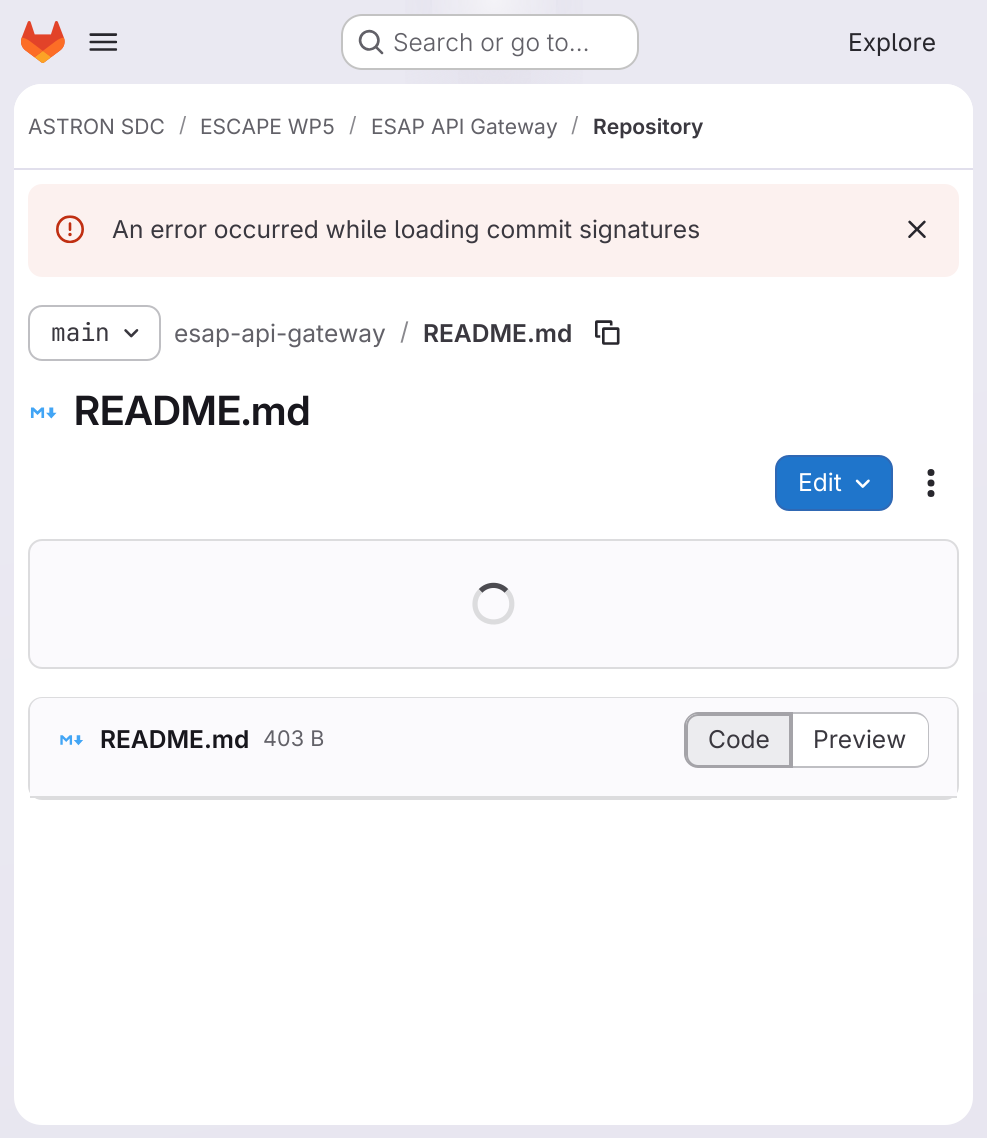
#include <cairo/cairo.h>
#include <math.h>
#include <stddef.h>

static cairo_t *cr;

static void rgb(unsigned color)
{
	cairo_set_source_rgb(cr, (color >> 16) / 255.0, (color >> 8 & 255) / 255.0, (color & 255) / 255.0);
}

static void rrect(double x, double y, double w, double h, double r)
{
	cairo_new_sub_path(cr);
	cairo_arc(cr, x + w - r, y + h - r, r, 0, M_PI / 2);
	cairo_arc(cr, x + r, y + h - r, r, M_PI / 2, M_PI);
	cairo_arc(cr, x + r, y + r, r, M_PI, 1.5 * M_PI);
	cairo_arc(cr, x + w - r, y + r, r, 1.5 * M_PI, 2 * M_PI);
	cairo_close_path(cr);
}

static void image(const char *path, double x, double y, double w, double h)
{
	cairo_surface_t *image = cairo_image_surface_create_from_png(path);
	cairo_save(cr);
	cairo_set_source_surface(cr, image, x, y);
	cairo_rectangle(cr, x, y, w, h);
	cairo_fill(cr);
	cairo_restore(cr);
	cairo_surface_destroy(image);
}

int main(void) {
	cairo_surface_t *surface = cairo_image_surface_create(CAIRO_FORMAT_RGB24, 987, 1138);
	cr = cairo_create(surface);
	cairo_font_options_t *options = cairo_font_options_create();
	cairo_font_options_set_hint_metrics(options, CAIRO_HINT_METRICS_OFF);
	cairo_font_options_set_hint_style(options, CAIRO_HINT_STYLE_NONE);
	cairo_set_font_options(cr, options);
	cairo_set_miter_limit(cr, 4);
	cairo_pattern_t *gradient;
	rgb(0xffffff);
	cairo_paint(cr);
	gradient = cairo_pattern_create_linear(606, 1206, 381, -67);
	cairo_pattern_add_color_stop_rgba(gradient, 0, 0.91, 0.902, 0.941, 1);
	cairo_pattern_add_color_stop_rgba(gradient, 0.7, 0.918, 0.914, 0.949, 1);
	cairo_set_source(cr, gradient);
	cairo_pattern_destroy(gradient);
	cairo_rectangle(cr, 0, 0, 987, 1138);
	cairo_fill(cr);
	gradient = cairo_pattern_create_radial(0, 0, 0, 0, 0, 1);
	cairo_pattern_set_matrix(gradient, &(cairo_matrix_t){1.0 / 494, 0, 0, 1.0 / 1139, -1.0 * 494 / 494, -1.0 * 0 / 1139});
	cairo_pattern_add_color_stop_rgba(gradient, 0, 0.894, 0.886, 0.929, 1);
	cairo_pattern_add_color_stop_rgba(gradient, 0.25, 0.894, 0.886, 0.929, 0);
	cairo_set_source(cr, gradient);
	cairo_pattern_destroy(gradient);
	cairo_rectangle(cr, 405, 0, 178, 84);
	cairo_fill(cr);
	gradient = cairo_pattern_create_radial(0, 0, 0, 0, 0, 1);
	cairo_pattern_set_matrix(gradient, &(cairo_matrix_t){1.0 / 494, 0, 0, 1.0 / 1139, -1.0 * 494 / 494, -1.0 * 0 / 1139});
	cairo_pattern_add_color_stop_rgba(gradient, 0, 0.894, 0.886, 0.925, 1);
	cairo_pattern_add_color_stop_rgba(gradient, 0.18, 0.894, 0.886, 0.925, 0);
	cairo_set_source(cr, gradient);
	cairo_pattern_destroy(gradient);
	cairo_rectangle(cr, 458, 0, 73, 84);
	cairo_fill(cr);
	gradient = cairo_pattern_create_radial(494, 0, 0, 494, 0, 1242);
	cairo_pattern_add_color_stop_rgba(gradient, 0, 1, 1, 1, 0.6);
	cairo_pattern_add_color_stop_rgba(gradient, 0.06, 1, 1, 1, 0);
	cairo_set_source(cr, gradient);
	cairo_pattern_destroy(gradient);
	cairo_rectangle(cr, 432, 0, 124, 63);
	cairo_fill(cr);
	image("img/1.png", 21, 21, 44, 42);
	image("img/2.png", 89, 33, 29, 18);
	rgb(0xffffff);
	rrect(341, 14, 298, 56, 21);
	cairo_fill(cr);
	rrect(342, 15, 296, 54, 20);
	cairo_set_source_rgba(cr, 0.02, 0.02, 0.024, 0.24);
	cairo_stroke(cr);
	image("img/3.png", 358, 29, 26, 26);
	rgb(0xffffff);
	rrect(14, 84, 959, 1041, 28);
	cairo_fill(cr);
	cairo_new_path(cr);
	cairo_move_to(cr, 42, 84);
	cairo_line_to(cr, 945, 84);
	cairo_curve_to(cr, 960.5, 84, 973, 96.5, 973, 112);
	cairo_line_to(cr, 973, 170);
	cairo_line_to(cr, 14, 170);
	cairo_line_to(cr, 14, 112);
	cairo_curve_to(cr, 14, 96.5, 26.5, 84, 42, 84);
	cairo_close_path(cr);
	cairo_fill(cr);
	rgb(0xe1dfec);
	cairo_rectangle(cr, 14, 168, 959, 2);
	cairo_fill(cr);
	rgb(0xfcf1ef);
	rrect(28, 184, 931, 93, 14);
	cairo_fill(cr);
	image("img/4.png", 56, 215, 28, 29);
	image("img/5.png", 908, 220, 18, 18);
	rrect(29, 306, 131, 54, 13);
	rgb(0xbfbfc3);
	cairo_stroke(cr);
	image("img/6.png", 124, 329, 15, 9);
	image("img/7.png", 595, 320, 25, 25);
	image("img/8.png", 30, 407, 27, 12);
	rgb(0x1f75cb);
	rrect(776, 456, 116, 54, 13);
	cairo_fill_preserve(cr);
	rgb(0x2f68b4);
	cairo_stroke(cr);
	image("img/9.png", 855, 479, 15, 9);
	image("img/10.png", 927, 469, 8, 28);
	rgb(0xfbfafd);
	rrect(29, 540, 929, 128, 13);
	cairo_fill_preserve(cr);
	rgb(0xdcdcde);
	cairo_stroke(cr);
	cairo_new_path(cr);
	cairo_move_to(cr, 480.5, 591);
	cairo_curve_to(cr, 487.5, 583.5, 499.5, 583.5, 506.5, 591);
	rgb(0x4c4b51);
	cairo_set_line_width(cr, 5.2);
	cairo_stroke(cr);
	cairo_new_path(cr);
	cairo_move_to(cr, 506.5, 591);
	cairo_curve_to(cr, 511, 595, 512.5, 601.5, 511.5, 607.5);
	cairo_curve_to(cr, 507, 629, 475, 625.5, 475, 604);
	cairo_curve_to(cr, 475, 599, 477, 594, 480.5, 591);
	rgb(0xdcdcde);
	cairo_stroke(cr);
	rrect(29, 698, 929, 101, 13);
	cairo_set_line_width(cr, 2);
	cairo_stroke(cr);
	rgb(0xfbfafd);
	cairo_new_path(cr);
	cairo_move_to(cr, 42, 698);
	cairo_line_to(cr, 945, 698);
	cairo_curve_to(cr, 951.5, 698, 957, 703.5, 957, 710);
	cairo_line_to(cr, 957, 798);
	cairo_line_to(cr, 30, 798);
	cairo_line_to(cr, 30, 710);
	cairo_curve_to(cr, 30, 703.5, 35.5, 698, 42, 698);
	cairo_close_path(cr);
	cairo_fill(cr);
	rgb(0xdcdcde);
	cairo_rectangle(cr, 30, 796, 927, 2);
	cairo_fill(cr);
	image("img/11.png", 60, 735, 23, 11);
	rgb(0xececef);
	cairo_new_path(cr);
	cairo_move_to(cr, 698, 715);
	cairo_line_to(cr, 790, 715);
	cairo_line_to(cr, 790, 766);
	cairo_line_to(cr, 698, 766);
	cairo_curve_to(cr, 692, 766, 687, 761, 687, 755);
	cairo_line_to(cr, 687, 726);
	cairo_curve_to(cr, 687, 720, 692, 715, 698, 715);
	cairo_close_path(cr);
	cairo_fill_preserve(cr);
	rgb(0xa4a3a8);
	cairo_stroke(cr);
	cairo_set_fill_rule(cr, CAIRO_FILL_RULE_EVEN_ODD);
	cairo_new_path(cr);
	cairo_move_to(cr, 698, 712);
	cairo_line_to(cr, 791, 712);
	cairo_line_to(cr, 791, 768);
	cairo_line_to(cr, 698, 768);
	cairo_curve_to(cr, 691, 768, 684, 762, 684, 754);
	cairo_line_to(cr, 684, 726);
	cairo_curve_to(cr, 684, 719, 691, 712, 698, 712);
	cairo_close_path(cr);
	cairo_move_to(cr, 698, 714);
	cairo_line_to(cr, 791, 714);
	cairo_line_to(cr, 791, 766);
	cairo_line_to(cr, 698, 766);
	cairo_curve_to(cr, 691, 766, 686, 761, 686, 754);
	cairo_line_to(cr, 686, 726);
	cairo_curve_to(cr, 686, 719, 691, 714, 698, 714);
	cairo_close_path(cr);
	cairo_fill(cr);
	rgb(0xffffff);
	cairo_new_path(cr);
	cairo_move_to(cr, 793, 714);
	cairo_line_to(cr, 916, 714);
	cairo_curve_to(cr, 922.5, 714, 928, 719.5, 928, 726);
	cairo_line_to(cr, 928, 755);
	cairo_curve_to(cr, 928, 761.5, 922.5, 767, 916, 767);
	cairo_line_to(cr, 793, 767);
	cairo_close_path(cr);
	cairo_fill(cr);
	rgb(0xbfbfc3);
	cairo_new_path(cr);
	cairo_move_to(cr, 793, 712);
	cairo_line_to(cr, 915, 712);
	cairo_curve_to(cr, 923, 712, 929, 719, 929, 726);
	cairo_line_to(cr, 929, 754);
	cairo_curve_to(cr, 929, 762, 923, 768, 915, 768);
	cairo_line_to(cr, 793, 768);
	cairo_close_path(cr);
	cairo_move_to(cr, 793, 714);
	cairo_line_to(cr, 915, 714);
	cairo_curve_to(cr, 922, 714, 928, 719, 928, 726);
	cairo_line_to(cr, 928, 754);
	cairo_curve_to(cr, 928, 761, 922, 766, 915, 766);
	cairo_line_to(cr, 793, 766);
	cairo_close_path(cr);
	cairo_fill(cr);
	rgb(0xa4a3a8);
	cairo_rectangle(cr, 791, 712, 2, 56);
	cairo_fill(cr);
	cairo_select_font_face(cr, "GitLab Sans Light", CAIRO_FONT_SLANT_NORMAL, CAIRO_FONT_WEIGHT_NORMAL);
	cairo_set_font_size(cr, 24.5);
	rgb(0x626168);
	cairo_move_to(cr, 393, 51);
	cairo_show_text(cr, "Search or go to…");
	cairo_select_font_face(cr, "GitLab Sans", CAIRO_FONT_SLANT_NORMAL, CAIRO_FONT_WEIGHT_NORMAL);
	rgb(0x28272d);
	cairo_move_to(cr, 848, 51);
	cairo_show_text(cr, "Explore");
	cairo_set_font_size(cr, 21);
	rgb(0x626168);
	cairo_move_to(cr, 28, 134);
	cairo_show_text(cr, "ASTRON SDC");
	rgb(0x89888d);
	cairo_move_to(cr, 179, 132);
	cairo_show_text(cr, "/");
	rgb(0x626168);
	cairo_move_to(cr, 200, 134);
	cairo_show_text(cr, "ESCAPE WP5");
	rgb(0x89888d);
	cairo_move_to(cr, 349, 132);
	cairo_show_text(cr, "/");
	rgb(0x626168);
	cairo_move_to(cr, 371, 134);
	cairo_show_text(cr, "ESAP API Gateway");
	rgb(0x89888d);
	cairo_move_to(cr, 571, 132);
	cairo_show_text(cr, "/");
	cairo_select_font_face(cr, "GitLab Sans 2 SemiBold", CAIRO_FONT_SLANT_NORMAL, CAIRO_FONT_WEIGHT_NORMAL);
	rgb(0x3a383f);
	cairo_move_to(cr, 593, 134);
	cairo_show_text(cr, "Repository");
	cairo_select_font_face(cr, "GitLab Sans", CAIRO_FONT_SLANT_NORMAL, CAIRO_FONT_WEIGHT_NORMAL);
	cairo_set_font_size(cr, 24.5);
	cairo_move_to(cr, 112, 238);
	cairo_show_text(cr, "An error occurred while loading commit signatures");
	cairo_select_font_face(cr, "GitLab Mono", CAIRO_FONT_SLANT_NORMAL, CAIRO_FONT_WEIGHT_NORMAL);
	cairo_move_to(cr, 51, 341);
	cairo_show_text(cr, "main");
	cairo_select_font_face(cr, "GitLab Sans", CAIRO_FONT_SLANT_NORMAL, CAIRO_FONT_WEIGHT_NORMAL);
	rgb(0x626168);
	cairo_move_to(cr, 174, 342);
	cairo_show_text(cr, "esap-api-gateway");
	rgb(0x89888d);
	cairo_move_to(cr, 400, 340);
	cairo_show_text(cr, "/");
	cairo_select_font_face(cr, "GitLab Sans 2 SemiBold", CAIRO_FONT_SLANT_NORMAL, CAIRO_FONT_WEIGHT_NORMAL);
	rgb(0x3a383f);
	cairo_move_to(cr, 423, 342);
	cairo_show_text(cr, "README.md");
	cairo_select_font_face(cr, "GitLab Sans SemiBold", CAIRO_FONT_SLANT_NORMAL, CAIRO_FONT_WEIGHT_NORMAL);
	cairo_set_font_size(cr, 40.25);
	rgb(0x18171d);
	cairo_move_to(cr, 74, 425);
	cairo_show_text(cr, "README.md");
	cairo_select_font_face(cr, "GitLab Sans", CAIRO_FONT_SLANT_NORMAL, CAIRO_FONT_WEIGHT_NORMAL);
	cairo_set_font_size(cr, 24.5);
	rgb(0xffffff);
	cairo_move_to(cr, 798, 491);
	cairo_show_text(cr, "Edit");
	cairo_select_font_face(cr, "GitLab Sans 2 SemiBold", CAIRO_FONT_SLANT_NORMAL, CAIRO_FONT_WEIGHT_NORMAL);
	rgb(0x18171d);
	cairo_move_to(cr, 100, 748);
	cairo_show_text(cr, "README.md");
	cairo_select_font_face(cr, "GitLab Sans", CAIRO_FONT_SLANT_NORMAL, CAIRO_FONT_WEIGHT_NORMAL);
	cairo_set_font_size(cr, 21.5);
	rgb(0x626168);
	cairo_move_to(cr, 263, 746);
	cairo_show_text(cr, "403 B");
	cairo_set_font_size(cr, 24.5);
	rgb(0x3a383f);
	cairo_move_to(cr, 708, 748);
	cairo_show_text(cr, "Code");
	cairo_move_to(cr, 813, 748);
	cairo_show_text(cr, "Preview");
	cairo_surface_write_to_png(surface, "page.png");
	cairo_font_options_destroy(options);
	cairo_destroy(cr);
	cairo_surface_destroy(surface);
	return 0;
}
